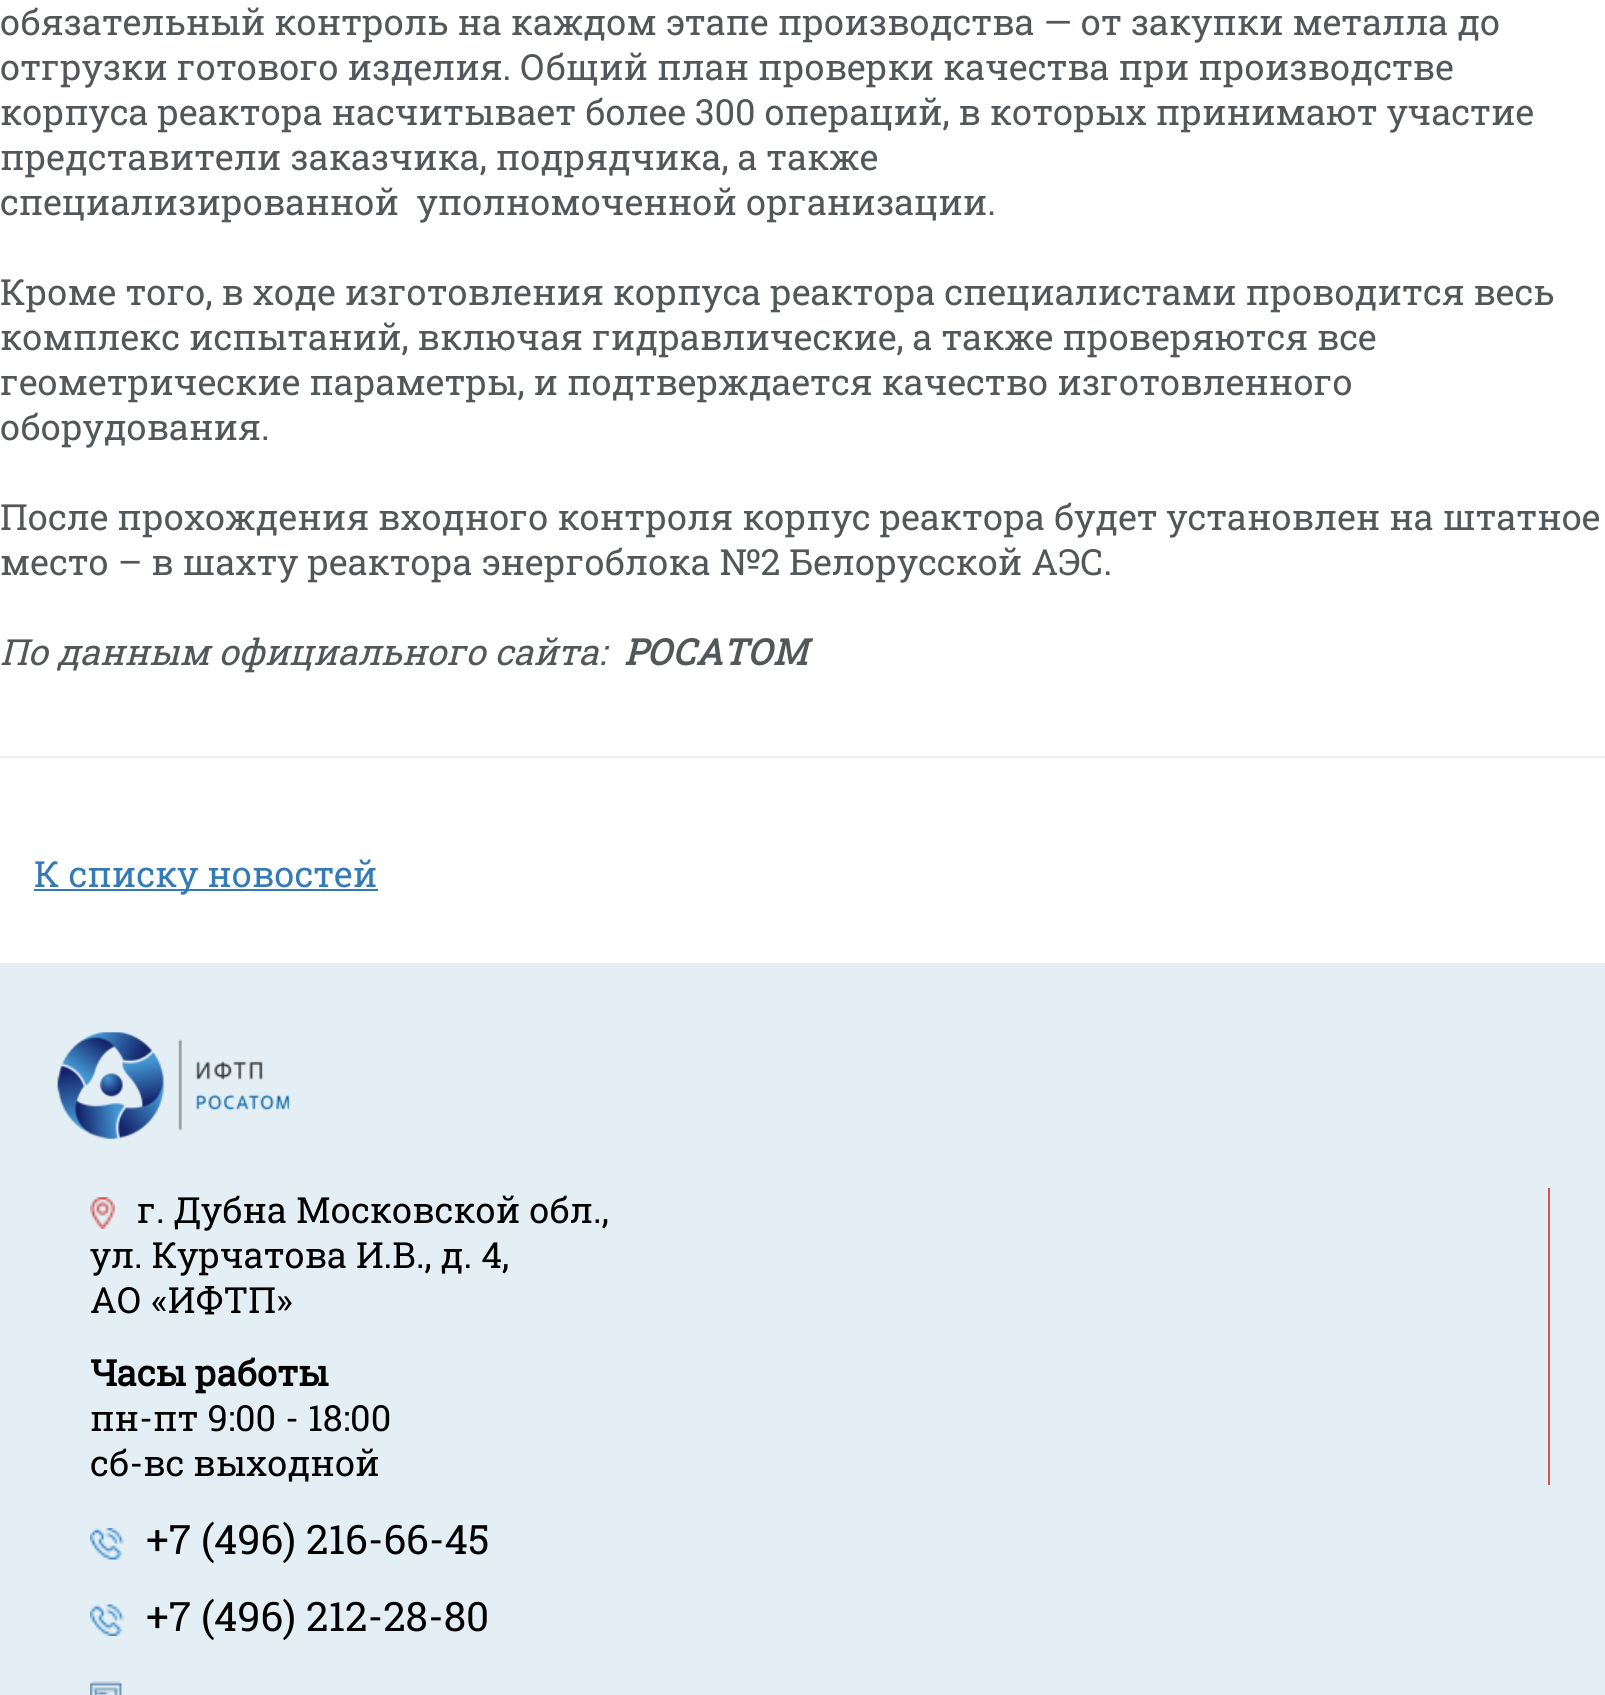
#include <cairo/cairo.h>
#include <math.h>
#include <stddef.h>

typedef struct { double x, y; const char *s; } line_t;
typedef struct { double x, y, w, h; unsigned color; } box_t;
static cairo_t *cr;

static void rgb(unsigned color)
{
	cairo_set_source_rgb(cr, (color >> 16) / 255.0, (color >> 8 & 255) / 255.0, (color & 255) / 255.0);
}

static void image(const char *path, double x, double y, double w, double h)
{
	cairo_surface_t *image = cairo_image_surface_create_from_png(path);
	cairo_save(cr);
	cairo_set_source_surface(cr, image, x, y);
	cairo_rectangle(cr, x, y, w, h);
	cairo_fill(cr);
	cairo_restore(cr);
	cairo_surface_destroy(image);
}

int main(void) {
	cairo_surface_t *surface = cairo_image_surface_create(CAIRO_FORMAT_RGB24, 1605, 1695);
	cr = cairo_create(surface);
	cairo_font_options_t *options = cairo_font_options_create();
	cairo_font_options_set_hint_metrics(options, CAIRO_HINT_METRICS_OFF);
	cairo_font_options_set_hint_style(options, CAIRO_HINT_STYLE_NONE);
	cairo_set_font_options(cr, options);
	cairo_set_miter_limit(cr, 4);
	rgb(0xffffff);
	cairo_paint(cr);
	{
		static const box_t items[] = {
			{0, 756, 1605, 2, 0xeeeeee},
			{34, 889, 344, 2, 0x337ab7},
			{0, 963, 1605, 732, 0xe3eff4},
		};
		for (size_t i = 0; i < sizeof items / sizeof *items; i++) {
			rgb(items[i].color);
			cairo_rectangle(cr, items[i].x, items[i].y, items[i].w, items[i].h);
			cairo_fill(cr);
		}
	}
	image("img/1.png", 57, 1032, 233, 107);
	rgb(0xd25455);
	cairo_rectangle(cr, 1548, 1188, 2, 297);
	cairo_fill(cr);
	image("img/2.png", 90, 1197, 25, 32);
	image("img/3.png", 90, 1528, 34, 32);
	image("img/4.png", 90, 1604, 34, 32);
	image("img/5.png", 90, 1681, 32, 14);
	cairo_select_font_face(cr, "Roboto Slab", CAIRO_FONT_SLANT_NORMAL, CAIRO_FONT_WEIGHT_NORMAL);
	cairo_set_font_size(cr, 36);
	rgb(0x545759);
	{
		static const line_t items[] = {
			{0, 35, "обязательный контроль на каждом этапе производства — от закупки металла до"},
			{0, 80, "отгрузки готового изделия. Общий план проверки качества при производстве"},
			{0, 125, "корпуса реактора насчитывает более 300 операций, в которых принимают участие"},
			{0, 170, "представители заказчика, подрядчика, а также"},
			{0, 215, "специализированной  уполномоченной организации."},
			{0, 305, "Кроме того, в ходе изготовления корпуса реактора специалистами проводится весь"},
			{0, 350, "комплекс испытаний, включая гидравлические, а также проверяются все"},
			{0, 395, "геометрические параметры, и подтверждается качество изготовленного"},
			{0, 440, "оборудования."},
			{0, 530, "После прохождения входного контроля корпус реактора будет установлен на штатное"},
			{0, 575, "место – в шахту реактора энергоблока №2 Белорусской АЭС."},
		};
		for (size_t i = 0; i < sizeof items / sizeof *items; i++) {
			cairo_move_to(cr, items[i].x, items[i].y);
			cairo_show_text(cr, items[i].s);
		}
	}
	cairo_select_font_face(cr, "Roboto Slab", CAIRO_FONT_SLANT_ITALIC, CAIRO_FONT_WEIGHT_NORMAL);
	cairo_move_to(cr, 0, 665);
	cairo_show_text(cr, "По данным официального сайта:");
	cairo_select_font_face(cr, "Roboto Slab", CAIRO_FONT_SLANT_ITALIC, CAIRO_FONT_WEIGHT_BOLD);
	cairo_move_to(cr, 624, 665);
	cairo_show_text(cr, "РОСАТОМ");
	cairo_select_font_face(cr, "Roboto Slab", CAIRO_FONT_SLANT_NORMAL, CAIRO_FONT_WEIGHT_NORMAL);
	rgb(0x337ab7);
	cairo_move_to(cr, 34, 887);
	cairo_show_text(cr, "К списку новостей");
	rgb(0x000000);
	{
		static const line_t items[] = {
			{137, 1223, "г. Дубна Московской обл.,"},
			{90, 1268, "ул. Курчатова И.В., д. 4,"},
			{90, 1313, "АО «ИФТП»"},
		};
		for (size_t i = 0; i < sizeof items / sizeof *items; i++) {
			cairo_move_to(cr, items[i].x, items[i].y);
			cairo_show_text(cr, items[i].s);
		}
	}
	cairo_select_font_face(cr, "Roboto Slab", CAIRO_FONT_SLANT_NORMAL, CAIRO_FONT_WEIGHT_BOLD);
	cairo_move_to(cr, 90, 1386);
	cairo_show_text(cr, "Часы работы");
	cairo_select_font_face(cr, "Roboto Slab", CAIRO_FONT_SLANT_NORMAL, CAIRO_FONT_WEIGHT_NORMAL);
	cairo_move_to(cr, 90, 1431);
	cairo_show_text(cr, "пн-пт 9:00 - 18:00");
	cairo_move_to(cr, 90, 1476);
	cairo_show_text(cr, "сб-вс выходной");
	cairo_set_font_size(cr, 40.5);
	cairo_move_to(cr, 146, 1554);
	cairo_show_text(cr, "+7 (496) 216-66-45");
	cairo_move_to(cr, 146, 1631);
	cairo_show_text(cr, "+7 (496) 212-28-80");
	cairo_surface_write_to_png(surface, "page.png");
	cairo_font_options_destroy(options);
	cairo_destroy(cr);
	cairo_surface_destroy(surface);
	return 0;
}
